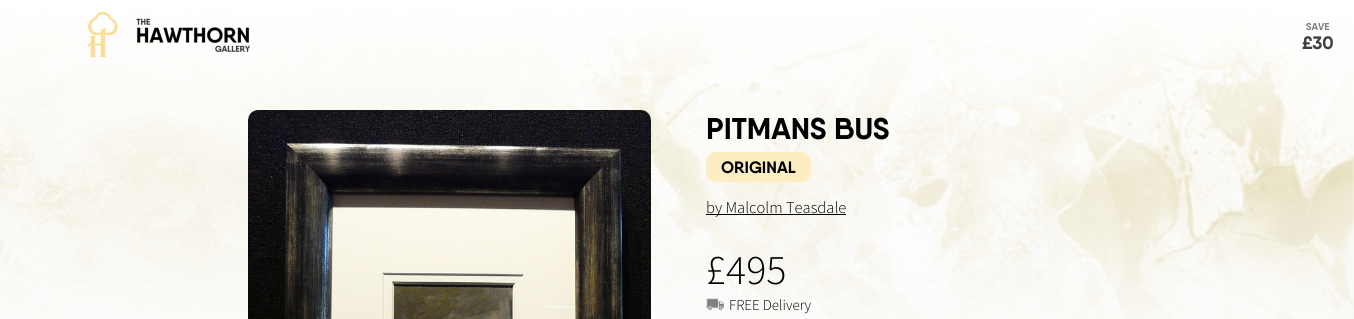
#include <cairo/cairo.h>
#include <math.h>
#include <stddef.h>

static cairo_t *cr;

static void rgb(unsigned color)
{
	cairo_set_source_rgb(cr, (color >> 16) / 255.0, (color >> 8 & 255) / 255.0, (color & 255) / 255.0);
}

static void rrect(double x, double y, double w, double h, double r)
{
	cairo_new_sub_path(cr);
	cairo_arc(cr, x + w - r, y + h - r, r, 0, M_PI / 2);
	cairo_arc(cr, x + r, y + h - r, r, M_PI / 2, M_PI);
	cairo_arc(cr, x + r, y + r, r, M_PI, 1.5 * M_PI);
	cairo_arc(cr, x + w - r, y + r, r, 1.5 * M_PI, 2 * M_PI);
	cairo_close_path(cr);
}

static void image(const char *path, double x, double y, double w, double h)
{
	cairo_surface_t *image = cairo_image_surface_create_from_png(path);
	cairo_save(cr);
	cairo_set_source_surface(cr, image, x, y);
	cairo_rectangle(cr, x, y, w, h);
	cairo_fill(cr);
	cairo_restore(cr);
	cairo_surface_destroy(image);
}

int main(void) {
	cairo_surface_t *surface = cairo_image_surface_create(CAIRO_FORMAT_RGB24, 1354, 319);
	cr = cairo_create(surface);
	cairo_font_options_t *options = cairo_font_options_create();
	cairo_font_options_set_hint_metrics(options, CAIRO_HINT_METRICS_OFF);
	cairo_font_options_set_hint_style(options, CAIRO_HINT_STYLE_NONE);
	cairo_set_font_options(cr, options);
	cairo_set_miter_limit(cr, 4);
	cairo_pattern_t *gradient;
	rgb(0xfcfcfc);
	cairo_paint(cr);
	image("img/2.png", 0, 1, 1354, 318);
	gradient = cairo_pattern_create_linear(677, 0, 677, 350);
	cairo_pattern_add_color_stop_rgba(gradient, 0, 1, 1, 1, 1);
	cairo_pattern_add_color_stop_rgba(gradient, 0.5, 1, 1, 1, 0);
	cairo_pattern_add_color_stop_rgba(gradient, 0.5, 0.988, 0.988, 0.988, 0);
	cairo_pattern_add_color_stop_rgba(gradient, 1, 0.988, 0.988, 0.988, 1);
	cairo_set_source(cr, gradient);
	cairo_pattern_destroy(gradient);
	cairo_rectangle(cr, 0, 0, 1354, 319);
	cairo_fill(cr);
	image("img/1.png", 87, 11, 163, 47);
	image("img/3.png", 248, 110, 403, 209);
	rgb(0xfdedc3);
	rrect(706, 152, 105, 30, 10);
	cairo_fill(cr);
	rgb(0x000000);
	cairo_rectangle(cr, 706, 214, 140, 1);
	cairo_fill(cr);
	image("img/4.png", 706, 298, 18, 12);
	cairo_select_font_face(cr, "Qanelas", CAIRO_FONT_SLANT_NORMAL, CAIRO_FONT_WEIGHT_BOLD);
	cairo_set_font_size(cr, 10);
	rgb(0x808080);
	cairo_move_to(cr, 1306, 30);
	cairo_show_text(cr, "SAVE");
	cairo_set_font_size(cr, 18);
	rgb(0x404040);
	cairo_move_to(cr, 1302, 49);
	cairo_show_text(cr, "£30");
	cairo_set_font_size(cr, 30);
	rgb(0x000000);
	cairo_move_to(cr, 706, 139);
	cairo_show_text(cr, "PITMANS BUS");
	cairo_set_font_size(cr, 16.5);
	cairo_move_to(cr, 721, 173);
	cairo_show_text(cr, "ORIGINAL");
	cairo_select_font_face(cr, "Source Sans Pro Light", CAIRO_FONT_SLANT_NORMAL, CAIRO_FONT_WEIGHT_NORMAL);
	cairo_move_to(cr, 706, 213);
	cairo_show_text(cr, "by Malcolm Teasdale");
	cairo_set_font_size(cr, 42);
	cairo_move_to(cr, 706, 284);
	cairo_show_text(cr, "£495");
	cairo_set_font_size(cr, 15);
	cairo_move_to(cr, 729, 310);
	cairo_show_text(cr, "FREE Delivery");
	cairo_surface_write_to_png(surface, "page.png");
	cairo_font_options_destroy(options);
	cairo_destroy(cr);
	cairo_surface_destroy(surface);
	return 0;
}
